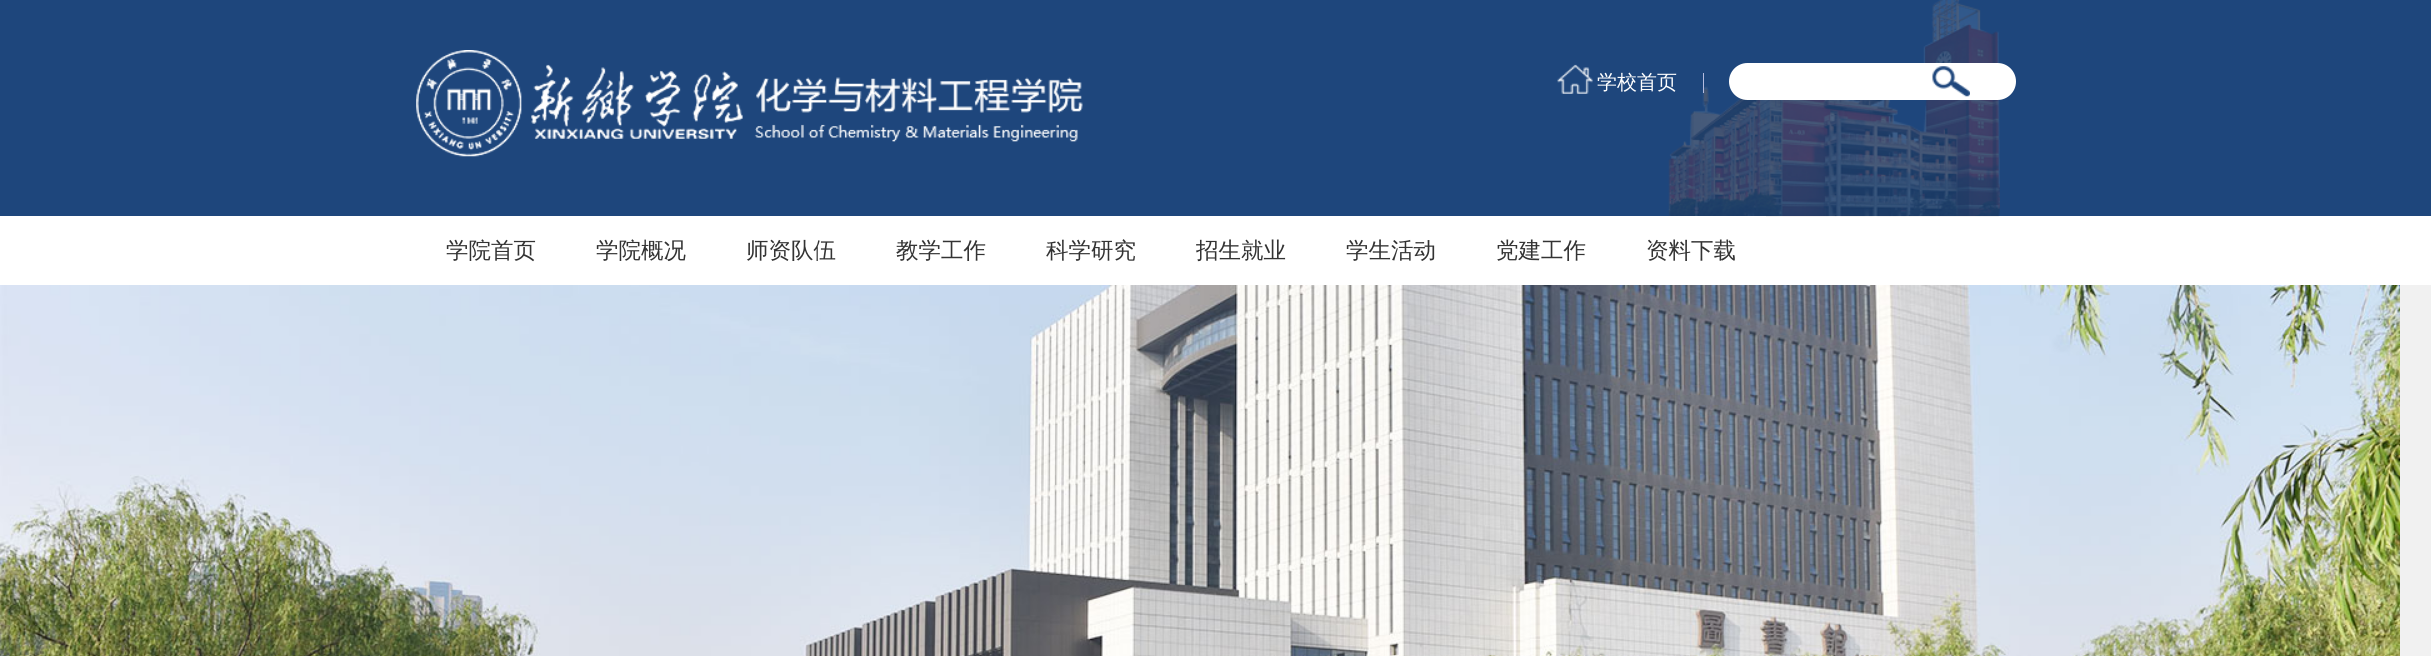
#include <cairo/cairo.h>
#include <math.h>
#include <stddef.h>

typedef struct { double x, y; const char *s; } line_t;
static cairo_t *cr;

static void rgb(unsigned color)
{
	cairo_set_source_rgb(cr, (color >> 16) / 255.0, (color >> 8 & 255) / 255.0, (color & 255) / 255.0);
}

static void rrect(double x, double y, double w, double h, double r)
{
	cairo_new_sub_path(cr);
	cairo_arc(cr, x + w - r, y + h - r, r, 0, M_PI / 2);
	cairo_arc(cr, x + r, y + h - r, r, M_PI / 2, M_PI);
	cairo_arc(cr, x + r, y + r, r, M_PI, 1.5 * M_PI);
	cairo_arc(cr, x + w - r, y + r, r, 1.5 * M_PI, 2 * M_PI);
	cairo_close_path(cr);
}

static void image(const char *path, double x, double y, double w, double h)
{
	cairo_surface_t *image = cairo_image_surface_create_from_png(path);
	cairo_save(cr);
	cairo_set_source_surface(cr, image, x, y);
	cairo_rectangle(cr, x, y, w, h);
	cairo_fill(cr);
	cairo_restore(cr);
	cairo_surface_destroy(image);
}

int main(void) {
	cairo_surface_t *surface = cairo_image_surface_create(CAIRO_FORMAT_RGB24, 2431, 656);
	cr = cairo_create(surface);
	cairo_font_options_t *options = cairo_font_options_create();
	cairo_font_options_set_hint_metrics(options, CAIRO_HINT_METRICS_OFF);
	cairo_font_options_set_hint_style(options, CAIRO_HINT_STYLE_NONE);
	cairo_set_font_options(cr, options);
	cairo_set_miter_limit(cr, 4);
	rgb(0xf1f1f1);
	cairo_paint(cr);
	rgb(0x1e467c);
	cairo_rectangle(cr, 0, 0, 2431, 216);
	cairo_fill(cr);
	rgb(0xffffff);
	cairo_rectangle(cr, 0, 216, 2431, 69);
	cairo_fill(cr);
	image("img/1.png", 1668, 0, 332, 217);
	image("img/2.png", 416, 50, 667, 107);
	image("img/3.png", 1557, 64, 36, 30);
	rgb(0xb4bce0);
	cairo_rectangle(cr, 1703, 73, 1, 20);
	cairo_fill(cr);
	rgb(0xffffff);
	rrect(1729, 63, 287, 37, 18.5);
	cairo_fill(cr);
	image("img/4.png", 1932, 66, 38, 31);
	cairo_rectangle(cr, 1669, 216, 97, 1);
	cairo_fill(cr);
	image("img/5.png", 0, 285, 2400, 371);
	cairo_select_font_face(cr, "WenQuanYi Zen Hei Medium", CAIRO_FONT_SLANT_NORMAL, CAIRO_FONT_WEIGHT_NORMAL);
	cairo_set_font_size(cr, 20);
	cairo_move_to(cr, 1597, 89);
	cairo_show_text(cr, "学校首页");
	cairo_set_font_size(cr, 22.5);
	rgb(0x333333);
	{
		static const line_t items[] = {
			{446, 258, "学院首页"},
			{596, 258, "学院概况"},
			{746, 258, "师资队伍"},
			{896, 258, "教学工作"},
			{1046, 258, "科学研究"},
			{1196, 258, "招生就业"},
			{1346, 258, "学生活动"},
			{1496, 258, "党建工作"},
			{1646, 258, "资料下载"},
		};
		for (size_t i = 0; i < sizeof items / sizeof *items; i++) {
			cairo_move_to(cr, items[i].x, items[i].y);
			cairo_show_text(cr, items[i].s);
		}
	}
	cairo_surface_write_to_png(surface, "page.png");
	cairo_font_options_destroy(options);
	cairo_destroy(cr);
	cairo_surface_destroy(surface);
	return 0;
}
